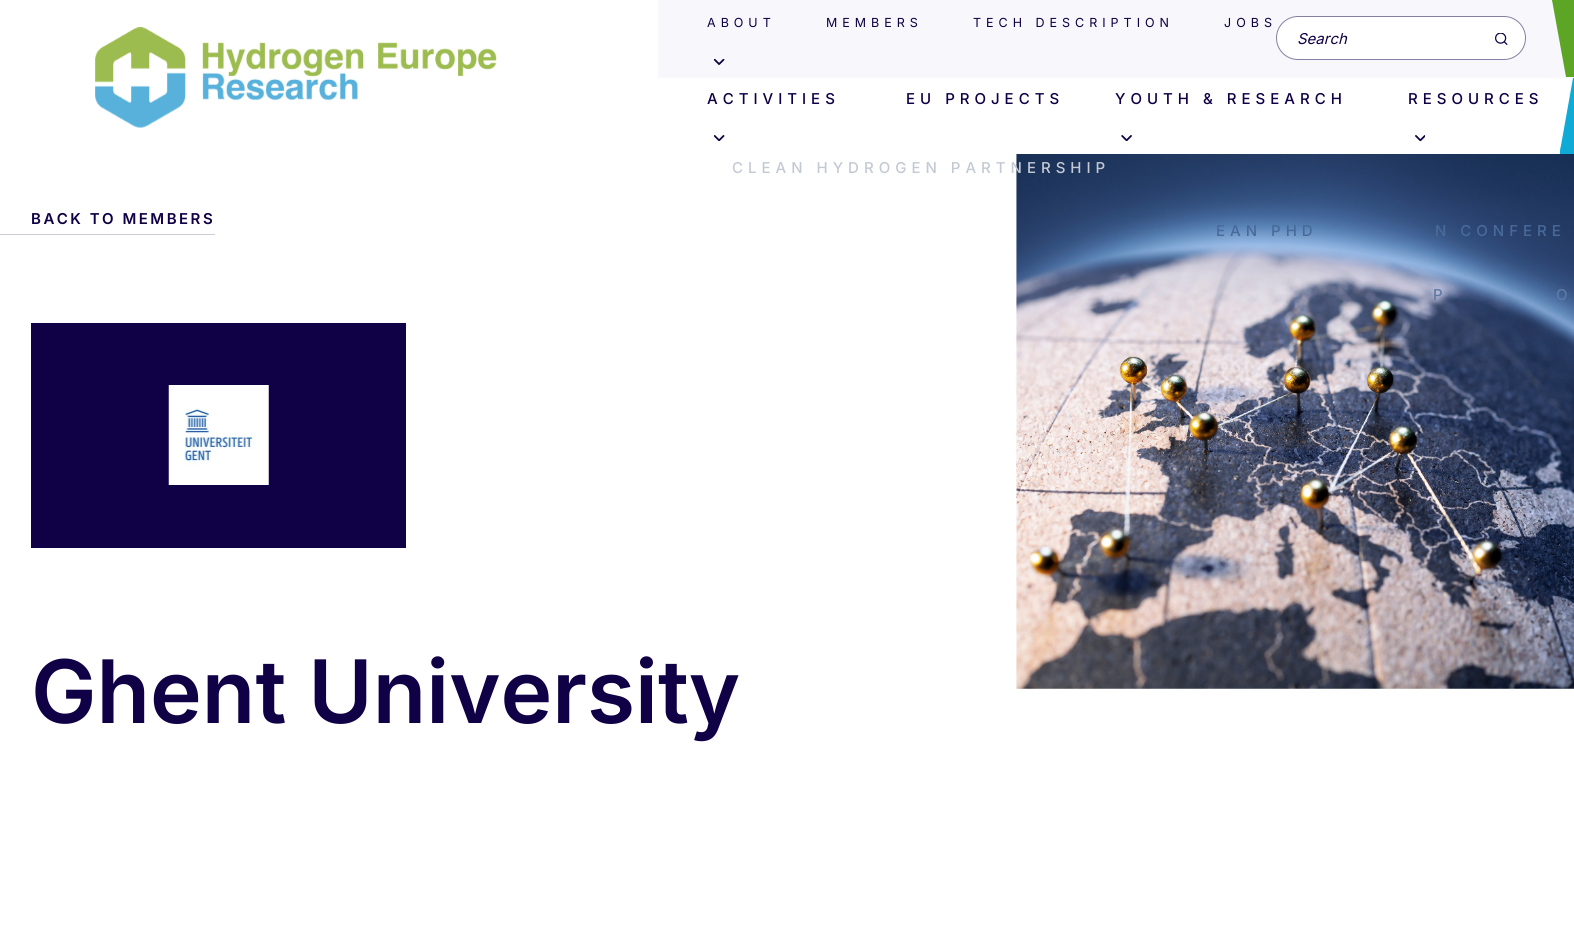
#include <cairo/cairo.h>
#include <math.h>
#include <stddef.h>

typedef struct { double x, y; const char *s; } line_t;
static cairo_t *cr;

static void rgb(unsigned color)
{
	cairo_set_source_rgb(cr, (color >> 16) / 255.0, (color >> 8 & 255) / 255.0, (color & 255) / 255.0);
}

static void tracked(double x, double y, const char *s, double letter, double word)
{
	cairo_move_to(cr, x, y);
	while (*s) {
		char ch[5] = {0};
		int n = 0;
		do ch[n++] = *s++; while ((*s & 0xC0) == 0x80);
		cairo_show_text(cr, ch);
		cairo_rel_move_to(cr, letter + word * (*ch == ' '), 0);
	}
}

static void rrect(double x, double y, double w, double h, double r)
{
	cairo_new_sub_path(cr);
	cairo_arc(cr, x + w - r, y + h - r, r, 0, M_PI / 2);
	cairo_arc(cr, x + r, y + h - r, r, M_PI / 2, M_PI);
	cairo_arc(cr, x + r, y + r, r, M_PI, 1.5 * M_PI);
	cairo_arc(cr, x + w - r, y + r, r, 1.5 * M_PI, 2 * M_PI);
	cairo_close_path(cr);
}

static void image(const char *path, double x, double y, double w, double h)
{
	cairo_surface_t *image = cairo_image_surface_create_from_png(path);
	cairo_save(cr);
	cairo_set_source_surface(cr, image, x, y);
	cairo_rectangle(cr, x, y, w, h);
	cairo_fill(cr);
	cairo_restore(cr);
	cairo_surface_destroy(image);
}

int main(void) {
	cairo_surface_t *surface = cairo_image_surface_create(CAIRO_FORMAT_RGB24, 1574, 949);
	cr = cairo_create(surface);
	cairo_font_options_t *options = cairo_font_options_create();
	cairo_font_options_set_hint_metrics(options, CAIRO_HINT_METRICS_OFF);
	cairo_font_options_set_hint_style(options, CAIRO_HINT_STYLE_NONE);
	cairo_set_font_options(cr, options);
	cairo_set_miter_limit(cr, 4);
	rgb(0xffffff);
	cairo_paint(cr);
	image("img/1.png", 95, 27, 402, 101);
	rgb(0xf8f7fb);
	cairo_rectangle(cr, 658, 0, 916, 78);
	cairo_fill(cr);
	image("img/2.png", 714, 59, 11, 6);
	rgb(0xffffff);
	rrect(1276, 16, 250, 44, 22);
	cairo_fill(cr);
	rrect(1276.5, 16.5, 249, 43, 21.5);
	cairo_set_source_rgba(cr, 0.063, 0, 0.271, 0.5);
	cairo_set_line_width(cr, 1);
	cairo_stroke(cr);
	image("img/3.png", 1495, 33, 13, 12);
	rgb(0x5da625);
	cairo_new_path(cr);
	cairo_move_to(cr, 1552, 0);
	cairo_line_to(cr, 1566, 77);
	cairo_line_to(cr, 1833, 77);
	cairo_line_to(cr, 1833, 0);
	cairo_close_path(cr);
	cairo_fill(cr);
	cairo_new_path(cr);
	cairo_move_to(cr, 1552, 1);
	cairo_line_to(cr, 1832, 1);
	cairo_line_to(cr, 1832, 77);
	cairo_line_to(cr, 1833, 77);
	cairo_line_to(cr, 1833, 0);
	cairo_line_to(cr, 1552, 0);
	cairo_line_to(cr, 1552, 3);
	cairo_close_path(cr);
	cairo_fill(cr);
	rgb(0x0fabd6);
	cairo_new_path(cr);
	cairo_move_to(cr, 1560, 151);
	cairo_line_to(cr, 1573, 78);
	cairo_line_to(cr, 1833, 78);
	cairo_line_to(cr, 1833, 154);
	cairo_line_to(cr, 1560, 154);
	cairo_close_path(cr);
	cairo_fill(cr);
	cairo_new_path(cr);
	cairo_move_to(cr, 1560, 154);
	cairo_line_to(cr, 1561, 146);
	cairo_line_to(cr, 1561, 153);
	cairo_line_to(cr, 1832, 153);
	cairo_line_to(cr, 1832, 79);
	cairo_line_to(cr, 1573, 79);
	cairo_line_to(cr, 1573, 78);
	cairo_line_to(cr, 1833, 78);
	cairo_line_to(cr, 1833, 154);
	cairo_close_path(cr);
	cairo_fill(cr);
	image("img/4.png", 714, 135, 11, 6);
	image("img/5.png", 1121, 135, 11, 6);
	image("img/6.png", 1415, 135, 10, 6);
	rgb(0xcfccda);
	cairo_rectangle(cr, 0, 234, 215, 1);
	cairo_fill(cr);
	image("img/7.png", 1016, 154, 558, 535);
	rgb(0x100045);
	cairo_rectangle(cr, 31, 323, 375, 225);
	cairo_fill(cr);
	image("img/8.png", 168, 385, 101, 100);
	cairo_select_font_face(cr, "Inter", CAIRO_FONT_SLANT_NORMAL, CAIRO_FONT_WEIGHT_NORMAL);
	cairo_set_font_size(cr, 12.5);
	{
		static const line_t items[] = {
			{707, 27, "ABOUT"},
			{826, 27, "MEMBERS"},
			{973, 27, "TECH DESCRIPTION"},
			{1224, 27, "JOBS"},
		};
		for (size_t i = 0; i < sizeof items / sizeof *items; i++) {
			tracked(items[i].x, items[i].y, items[i].s, 5, 0);
		}
	}
	cairo_select_font_face(cr, "Inter", CAIRO_FONT_SLANT_ITALIC, CAIRO_FONT_WEIGHT_NORMAL);
	cairo_set_font_size(cr, 15);
	cairo_move_to(cr, 1297, 44);
	cairo_show_text(cr, "Search");
	cairo_select_font_face(cr, "Inter Medium", CAIRO_FONT_SLANT_NORMAL, CAIRO_FONT_WEIGHT_NORMAL);
	tracked(707, 104, "ACTIVITIES", 5, 0);
	rgb(0xc4cad4);
	tracked(732, 173, "CLEAN HYDROGEN PARTNERSHIP", 5, 0);
	rgb(0x100045);
	tracked(906, 104, "EU PROJECTS", 5, 0);
	tracked(1115, 104, "YOUTH & RESEARCH", 5, 0);
	rgb(0x486a9a);
	tracked(1216, 236, "EAN PHD", 5, 0);
	tracked(1435, 236, "N CONFERE", 5, 0);
	rgb(0x100045);
	tracked(1408, 104, "RESOURCES", 5, 0);
	rgb(0x5f79a5);
	tracked(1433, 300, "P", 5, 0);
	tracked(1556, 300, "O", 5, 0);
	cairo_select_font_face(cr, "Inter SemiBold", CAIRO_FONT_SLANT_NORMAL, CAIRO_FONT_WEIGHT_NORMAL);
	rgb(0x100045);
	tracked(31, 224, "BACK TO MEMBERS", 2.5, 0);
	cairo_set_font_size(cr, 87.5);
	cairo_move_to(cr, 31, 723);
	cairo_show_text(cr, "Ghent University");
	cairo_surface_write_to_png(surface, "page.png");
	cairo_font_options_destroy(options);
	cairo_destroy(cr);
	cairo_surface_destroy(surface);
	return 0;
}
